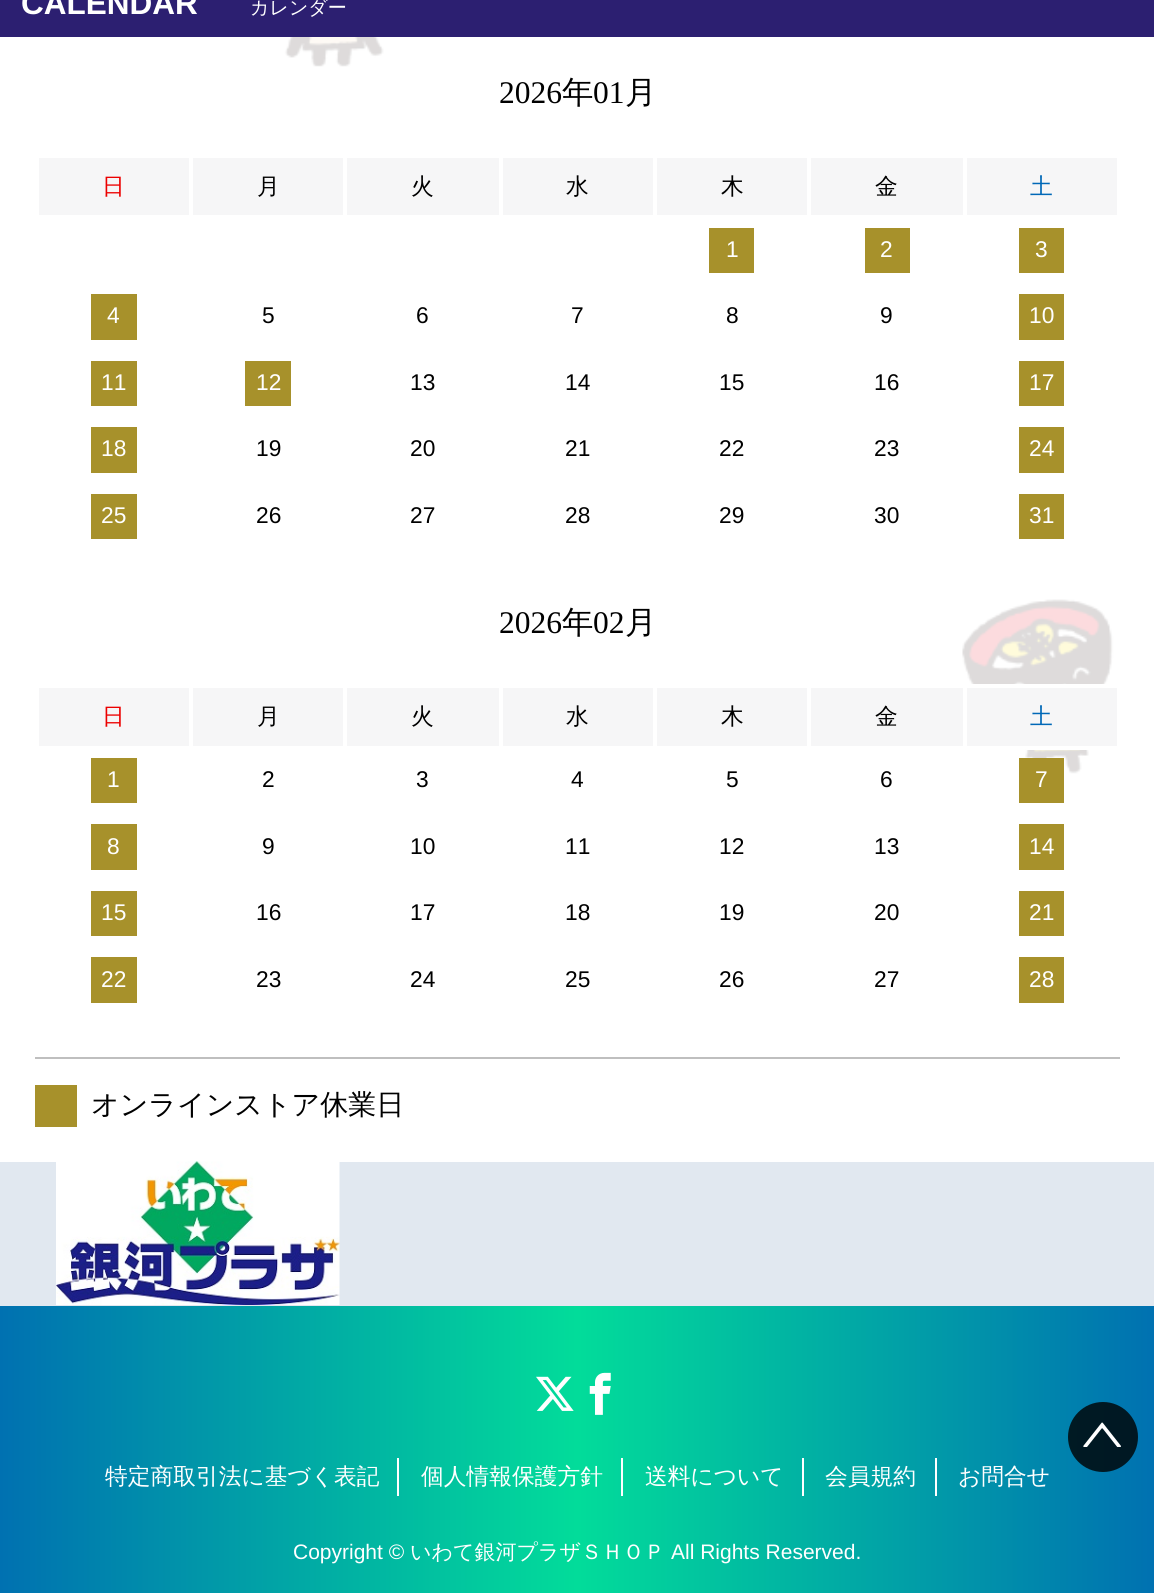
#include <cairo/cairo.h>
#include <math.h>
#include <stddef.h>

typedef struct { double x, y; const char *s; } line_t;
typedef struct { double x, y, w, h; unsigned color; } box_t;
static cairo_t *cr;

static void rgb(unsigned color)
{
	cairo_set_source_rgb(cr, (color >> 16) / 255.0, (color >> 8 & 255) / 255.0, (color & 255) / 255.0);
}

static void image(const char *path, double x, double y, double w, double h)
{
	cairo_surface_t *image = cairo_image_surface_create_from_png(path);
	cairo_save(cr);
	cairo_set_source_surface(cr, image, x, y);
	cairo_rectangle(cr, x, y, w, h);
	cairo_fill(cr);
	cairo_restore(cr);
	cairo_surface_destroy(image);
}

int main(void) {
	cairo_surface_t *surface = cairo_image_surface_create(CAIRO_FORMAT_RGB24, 1154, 1593);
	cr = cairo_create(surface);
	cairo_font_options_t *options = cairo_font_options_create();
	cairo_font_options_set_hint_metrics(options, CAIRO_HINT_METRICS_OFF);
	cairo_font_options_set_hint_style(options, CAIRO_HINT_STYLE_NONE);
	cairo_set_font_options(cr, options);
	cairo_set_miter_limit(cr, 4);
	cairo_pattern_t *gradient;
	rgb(0xffffff);
	cairo_paint(cr);
	image("img/1.png", 279, 37, 835, 1125);
	{
		static const box_t items[] = {
			{0, 0, 1154, 37, 0x2c1f71},
			{39, 158, 150, 57, 0xf6f6f7},
			{193, 158, 150, 57, 0xf6f6f7},
			{347, 158, 152, 57, 0xf6f6f7},
			{503, 158, 150, 57, 0xf6f6f7},
			{657, 158, 150, 57, 0xf6f6f7},
			{811, 158, 152, 57, 0xf6f6f7},
			{967, 158, 150, 57, 0xf6f6f7},
			{709, 228, 45, 45, 0xa7912b},
			{865, 228, 45, 45, 0xa7912b},
			{1019, 228, 45, 45, 0xa7912b},
			{91, 294, 46, 46, 0xa7912b},
			{1019, 294, 45, 46, 0xa7912b},
			{91, 361, 46, 45, 0xa7912b},
			{245, 361, 46, 45, 0xa7912b},
			{1019, 361, 45, 45, 0xa7912b},
			{91, 427, 46, 46, 0xa7912b},
			{1019, 427, 45, 46, 0xa7912b},
			{91, 494, 46, 45, 0xa7912b},
			{1019, 494, 45, 45, 0xa7912b},
			{39, 688, 150, 58, 0xf6f6f7},
			{193, 688, 150, 58, 0xf6f6f7},
			{347, 688, 152, 58, 0xf6f6f7},
			{503, 688, 150, 58, 0xf6f6f7},
			{657, 688, 150, 58, 0xf6f6f7},
			{811, 688, 152, 58, 0xf6f6f7},
			{967, 688, 150, 58, 0xf6f6f7},
			{963, 684, 142, 4, 0xffffff},
			{91, 758, 46, 45, 0xa7912b},
			{1026, 746, 63, 4, 0xffffff},
			{1019, 758, 45, 45, 0xa7912b},
			{91, 824, 46, 46, 0xa7912b},
			{1019, 824, 45, 46, 0xa7912b},
			{91, 891, 46, 45, 0xa7912b},
			{1019, 891, 45, 45, 0xa7912b},
			{91, 957, 46, 46, 0xa7912b},
			{1019, 957, 45, 46, 0xa7912b},
			{35, 1057, 1085, 2, 0xbfbfbf},
			{35, 1085, 42, 42, 0xa7912b},
			{0, 1162, 1154, 144, 0xe1e8f0},
		};
		for (size_t i = 0; i < sizeof items / sizeof *items; i++) {
			rgb(items[i].color);
			cairo_rectangle(cr, items[i].x, items[i].y, items[i].w, items[i].h);
			cairo_fill(cr);
		}
	}
	image("img/2.png", 56, 1161, 284, 144);
	gradient = cairo_pattern_create_linear(0, 1450, 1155, 1450);
	cairo_pattern_add_color_stop_rgba(gradient, 0, 0, 0.443, 0.694, 1);
	cairo_pattern_add_color_stop_rgba(gradient, 0.5, 0.008, 0.863, 0.604, 1);
	cairo_pattern_add_color_stop_rgba(gradient, 1, 0, 0.443, 0.694, 1);
	cairo_set_source(cr, gradient);
	cairo_pattern_destroy(gradient);
	cairo_rectangle(cr, 0, 1306, 1154, 287);
	cairo_fill(cr);
	cairo_set_source_rgba(cr, 0, 0, 0, 0.8);
	cairo_arc(cr, 1103, 1437, 35, 0, 2 * M_PI);
	cairo_fill(cr);
	image("img/3.png", 1083, 1422, 38, 25);
	image("img/4.png", 536, 1376, 38, 35);
	image("img/5.png", 589, 1372, 22, 43);
	{
		static const box_t items[] = {
			{397, 1458, 2, 38, 0xffffff},
			{621, 1458, 2, 38, 0xffffff},
			{802, 1458, 2, 38, 0xffffff},
			{935, 1458, 2, 38, 0xffffff},
		};
		for (size_t i = 0; i < sizeof items / sizeof *items; i++) {
			rgb(items[i].color);
			cairo_rectangle(cr, items[i].x, items[i].y, items[i].w, items[i].h);
			cairo_fill(cr);
		}
	}
	cairo_select_font_face(cr, "Liberation Sans", CAIRO_FONT_SLANT_NORMAL, CAIRO_FONT_WEIGHT_BOLD);
	cairo_set_font_size(cr, 31.5);
	cairo_move_to(cr, 21, 14);
	cairo_show_text(cr, "CALENDAR");
	cairo_select_font_face(cr, "WenQuanYi Zen Hei Medium", CAIRO_FONT_SLANT_NORMAL, CAIRO_FONT_WEIGHT_NORMAL);
	cairo_set_font_size(cr, 19);
	cairo_move_to(cr, 250, 14);
	cairo_show_text(cr, "カレンダー");
	cairo_select_font_face(cr, "Liberation Serif", CAIRO_FONT_SLANT_NORMAL, CAIRO_FONT_WEIGHT_NORMAL);
	cairo_set_font_size(cr, 31.5);
	rgb(0x000000);
	cairo_move_to(cr, 499, 103);
	cairo_show_text(cr, "2026");
	cairo_select_font_face(cr, "WenQuanYi Zen Hei Medium", CAIRO_FONT_SLANT_NORMAL, CAIRO_FONT_WEIGHT_NORMAL);
	cairo_move_to(cr, 562, 103);
	cairo_show_text(cr, "年");
	cairo_select_font_face(cr, "Liberation Serif", CAIRO_FONT_SLANT_NORMAL, CAIRO_FONT_WEIGHT_NORMAL);
	cairo_move_to(cr, 593, 103);
	cairo_show_text(cr, "01");
	cairo_select_font_face(cr, "WenQuanYi Zen Hei Medium", CAIRO_FONT_SLANT_NORMAL, CAIRO_FONT_WEIGHT_NORMAL);
	cairo_move_to(cr, 625, 103);
	cairo_show_text(cr, "月");
	cairo_set_font_size(cr, 22.75);
	rgb(0xec0000);
	cairo_move_to(cr, 102, 194);
	cairo_show_text(cr, "日");
	rgb(0x000000);
	{
		static const line_t items[] = {
			{257, 194, "月"},
			{411, 194, "火"},
			{566, 194, "水"},
			{721, 194, "木"},
			{875, 194, "金"},
		};
		for (size_t i = 0; i < sizeof items / sizeof *items; i++) {
			cairo_move_to(cr, items[i].x, items[i].y);
			cairo_show_text(cr, items[i].s);
		}
	}
	rgb(0x0068b7);
	cairo_move_to(cr, 1030, 194);
	cairo_show_text(cr, "土");
	cairo_select_font_face(cr, "Liberation Sans", CAIRO_FONT_SLANT_NORMAL, CAIRO_FONT_WEIGHT_NORMAL);
	rgb(0xffffff);
	{
		static const line_t items[] = {
			{726, 257, "1"},
			{880, 257, "2"},
			{1035, 257, "3"},
			{107, 323, "4"},
		};
		for (size_t i = 0; i < sizeof items / sizeof *items; i++) {
			cairo_move_to(cr, items[i].x, items[i].y);
			cairo_show_text(cr, items[i].s);
		}
	}
	rgb(0x000000);
	{
		static const line_t items[] = {
			{262, 323, "5"},
			{416, 323, "6"},
			{571, 323, "7"},
			{726, 323, "8"},
			{880, 323, "9"},
		};
		for (size_t i = 0; i < sizeof items / sizeof *items; i++) {
			cairo_move_to(cr, items[i].x, items[i].y);
			cairo_show_text(cr, items[i].s);
		}
	}
	rgb(0xffffff);
	{
		static const line_t items[] = {
			{1029, 323, "10"},
			{101, 390, "11"},
			{256, 390, "12"},
		};
		for (size_t i = 0; i < sizeof items / sizeof *items; i++) {
			cairo_move_to(cr, items[i].x, items[i].y);
			cairo_show_text(cr, items[i].s);
		}
	}
	rgb(0x000000);
	{
		static const line_t items[] = {
			{410, 390, "13"},
			{565, 390, "14"},
			{719, 390, "15"},
			{874, 390, "16"},
		};
		for (size_t i = 0; i < sizeof items / sizeof *items; i++) {
			cairo_move_to(cr, items[i].x, items[i].y);
			cairo_show_text(cr, items[i].s);
		}
	}
	rgb(0xffffff);
	cairo_move_to(cr, 1029, 390);
	cairo_show_text(cr, "17");
	cairo_move_to(cr, 101, 456);
	cairo_show_text(cr, "18");
	rgb(0x000000);
	{
		static const line_t items[] = {
			{256, 456, "19"},
			{410, 456, "20"},
			{565, 456, "21"},
			{719, 456, "22"},
			{874, 456, "23"},
		};
		for (size_t i = 0; i < sizeof items / sizeof *items; i++) {
			cairo_move_to(cr, items[i].x, items[i].y);
			cairo_show_text(cr, items[i].s);
		}
	}
	rgb(0xffffff);
	cairo_move_to(cr, 1029, 456);
	cairo_show_text(cr, "24");
	cairo_move_to(cr, 101, 523);
	cairo_show_text(cr, "25");
	rgb(0x000000);
	{
		static const line_t items[] = {
			{256, 523, "26"},
			{410, 523, "27"},
			{565, 523, "28"},
			{719, 523, "29"},
			{874, 523, "30"},
		};
		for (size_t i = 0; i < sizeof items / sizeof *items; i++) {
			cairo_move_to(cr, items[i].x, items[i].y);
			cairo_show_text(cr, items[i].s);
		}
	}
	rgb(0xffffff);
	cairo_move_to(cr, 1029, 523);
	cairo_show_text(cr, "31");
	cairo_select_font_face(cr, "Liberation Serif", CAIRO_FONT_SLANT_NORMAL, CAIRO_FONT_WEIGHT_NORMAL);
	cairo_set_font_size(cr, 31.5);
	rgb(0x000000);
	cairo_move_to(cr, 499, 633);
	cairo_show_text(cr, "2026");
	cairo_select_font_face(cr, "WenQuanYi Zen Hei Medium", CAIRO_FONT_SLANT_NORMAL, CAIRO_FONT_WEIGHT_NORMAL);
	cairo_move_to(cr, 562, 633);
	cairo_show_text(cr, "年");
	cairo_select_font_face(cr, "Liberation Serif", CAIRO_FONT_SLANT_NORMAL, CAIRO_FONT_WEIGHT_NORMAL);
	cairo_move_to(cr, 593, 633);
	cairo_show_text(cr, "02");
	cairo_select_font_face(cr, "WenQuanYi Zen Hei Medium", CAIRO_FONT_SLANT_NORMAL, CAIRO_FONT_WEIGHT_NORMAL);
	cairo_move_to(cr, 625, 633);
	cairo_show_text(cr, "月");
	cairo_set_font_size(cr, 22.75);
	rgb(0xec0000);
	cairo_move_to(cr, 102, 724);
	cairo_show_text(cr, "日");
	rgb(0x000000);
	{
		static const line_t items[] = {
			{257, 724, "月"},
			{411, 724, "火"},
			{566, 724, "水"},
			{721, 724, "木"},
			{875, 724, "金"},
		};
		for (size_t i = 0; i < sizeof items / sizeof *items; i++) {
			cairo_move_to(cr, items[i].x, items[i].y);
			cairo_show_text(cr, items[i].s);
		}
	}
	rgb(0x0068b7);
	cairo_move_to(cr, 1030, 724);
	cairo_show_text(cr, "土");
	cairo_select_font_face(cr, "Liberation Sans", CAIRO_FONT_SLANT_NORMAL, CAIRO_FONT_WEIGHT_NORMAL);
	rgb(0xffffff);
	cairo_move_to(cr, 107, 787);
	cairo_show_text(cr, "1");
	rgb(0x000000);
	{
		static const line_t items[] = {
			{262, 787, "2"},
			{416, 787, "3"},
			{571, 787, "4"},
			{726, 787, "5"},
			{880, 787, "6"},
		};
		for (size_t i = 0; i < sizeof items / sizeof *items; i++) {
			cairo_move_to(cr, items[i].x, items[i].y);
			cairo_show_text(cr, items[i].s);
		}
	}
	rgb(0xffffff);
	cairo_move_to(cr, 1035, 787);
	cairo_show_text(cr, "7");
	cairo_move_to(cr, 107, 854);
	cairo_show_text(cr, "8");
	rgb(0x000000);
	{
		static const line_t items[] = {
			{262, 854, "9"},
			{410, 854, "10"},
			{565, 854, "11"},
			{719, 854, "12"},
			{874, 854, "13"},
		};
		for (size_t i = 0; i < sizeof items / sizeof *items; i++) {
			cairo_move_to(cr, items[i].x, items[i].y);
			cairo_show_text(cr, items[i].s);
		}
	}
	rgb(0xffffff);
	cairo_move_to(cr, 1029, 854);
	cairo_show_text(cr, "14");
	cairo_move_to(cr, 101, 920);
	cairo_show_text(cr, "15");
	rgb(0x000000);
	{
		static const line_t items[] = {
			{256, 920, "16"},
			{410, 920, "17"},
			{565, 920, "18"},
			{719, 920, "19"},
			{874, 920, "20"},
		};
		for (size_t i = 0; i < sizeof items / sizeof *items; i++) {
			cairo_move_to(cr, items[i].x, items[i].y);
			cairo_show_text(cr, items[i].s);
		}
	}
	rgb(0xffffff);
	cairo_move_to(cr, 1029, 920);
	cairo_show_text(cr, "21");
	cairo_move_to(cr, 101, 987);
	cairo_show_text(cr, "22");
	rgb(0x000000);
	{
		static const line_t items[] = {
			{256, 987, "23"},
			{410, 987, "24"},
			{565, 987, "25"},
			{719, 987, "26"},
			{874, 987, "27"},
		};
		for (size_t i = 0; i < sizeof items / sizeof *items; i++) {
			cairo_move_to(cr, items[i].x, items[i].y);
			cairo_show_text(cr, items[i].s);
		}
	}
	rgb(0xffffff);
	cairo_move_to(cr, 1029, 987);
	cairo_show_text(cr, "28");
	cairo_select_font_face(cr, "WenQuanYi Zen Hei Medium", CAIRO_FONT_SLANT_NORMAL, CAIRO_FONT_WEIGHT_NORMAL);
	cairo_set_font_size(cr, 28);
	rgb(0x000000);
	cairo_move_to(cr, 91, 1114);
	cairo_show_text(cr, "オンラインストア休業日");
	cairo_set_font_size(cr, 22.75);
	rgb(0xffffff);
	{
		static const line_t items[] = {
			{105, 1484, "特定商取引法に基づく表記"},
			{421, 1484, "個人情報保護方針"},
			{645, 1484, "送料について"},
			{825, 1484, "会員規約"},
			{958, 1484, "お問合せ"},
		};
		for (size_t i = 0; i < sizeof items / sizeof *items; i++) {
			cairo_move_to(cr, items[i].x, items[i].y);
			cairo_show_text(cr, items[i].s);
		}
	}
	cairo_select_font_face(cr, "Liberation Sans", CAIRO_FONT_SLANT_NORMAL, CAIRO_FONT_WEIGHT_NORMAL);
	cairo_set_font_size(cr, 21);
	cairo_move_to(cr, 293, 1559);
	cairo_show_text(cr, "Copyright ©");
	cairo_select_font_face(cr, "WenQuanYi Zen Hei Medium", CAIRO_FONT_SLANT_NORMAL, CAIRO_FONT_WEIGHT_NORMAL);
	cairo_move_to(cr, 410, 1559);
	cairo_show_text(cr, "いわて銀河プラザＳＨＯＰ");
	cairo_select_font_face(cr, "Liberation Sans", CAIRO_FONT_SLANT_NORMAL, CAIRO_FONT_WEIGHT_NORMAL);
	cairo_move_to(cr, 671, 1559);
	cairo_show_text(cr, "All Rights Reserved.");
	cairo_surface_write_to_png(surface, "page.png");
	cairo_font_options_destroy(options);
	cairo_destroy(cr);
	cairo_surface_destroy(surface);
	return 0;
}
